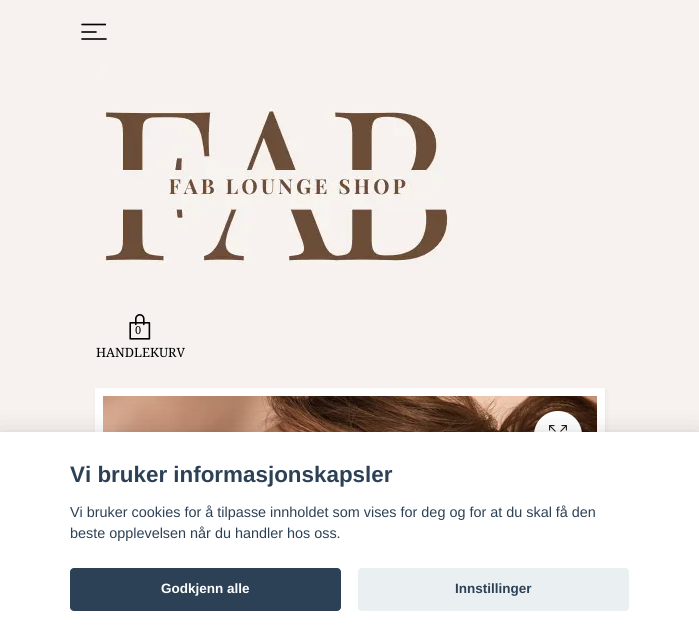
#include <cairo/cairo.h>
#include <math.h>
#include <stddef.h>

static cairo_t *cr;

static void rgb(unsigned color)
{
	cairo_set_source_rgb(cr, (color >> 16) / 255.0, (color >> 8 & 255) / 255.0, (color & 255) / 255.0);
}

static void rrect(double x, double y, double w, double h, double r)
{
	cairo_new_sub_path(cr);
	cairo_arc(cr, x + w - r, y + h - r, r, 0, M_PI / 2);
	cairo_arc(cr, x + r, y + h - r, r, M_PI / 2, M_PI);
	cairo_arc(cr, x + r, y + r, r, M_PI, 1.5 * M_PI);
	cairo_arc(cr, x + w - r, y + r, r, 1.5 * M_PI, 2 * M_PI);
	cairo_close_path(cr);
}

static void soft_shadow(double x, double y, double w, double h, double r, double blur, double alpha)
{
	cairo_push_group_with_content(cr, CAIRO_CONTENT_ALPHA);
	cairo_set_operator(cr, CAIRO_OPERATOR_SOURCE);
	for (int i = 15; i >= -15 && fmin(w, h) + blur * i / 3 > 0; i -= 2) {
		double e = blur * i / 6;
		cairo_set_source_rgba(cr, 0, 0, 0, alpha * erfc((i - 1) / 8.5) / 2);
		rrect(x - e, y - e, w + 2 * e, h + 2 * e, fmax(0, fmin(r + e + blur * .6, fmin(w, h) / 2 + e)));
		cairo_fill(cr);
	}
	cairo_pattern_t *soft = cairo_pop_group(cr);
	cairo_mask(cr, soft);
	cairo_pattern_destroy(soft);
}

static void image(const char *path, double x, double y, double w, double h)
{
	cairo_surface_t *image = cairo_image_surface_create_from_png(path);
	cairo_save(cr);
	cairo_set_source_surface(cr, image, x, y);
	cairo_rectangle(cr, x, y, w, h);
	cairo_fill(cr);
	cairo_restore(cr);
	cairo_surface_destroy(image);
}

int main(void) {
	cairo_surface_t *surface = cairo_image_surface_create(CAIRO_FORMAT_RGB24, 699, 641);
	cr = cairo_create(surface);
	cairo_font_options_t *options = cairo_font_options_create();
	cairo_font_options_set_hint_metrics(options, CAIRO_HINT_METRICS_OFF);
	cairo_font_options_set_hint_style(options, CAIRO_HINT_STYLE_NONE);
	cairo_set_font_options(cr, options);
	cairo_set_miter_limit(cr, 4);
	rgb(0xf7f2f0);
	cairo_paint(cr);
	cairo_save(cr);
	cairo_rectangle(cr, 81, 19, 25, 26);
	cairo_clip(cr);
	cairo_new_path(cr);
	cairo_move_to(cr, 82, 24.5);
	cairo_line_to(cr, 106, 24.5);
	cairo_move_to(cr, 82, 32);
	cairo_line_to(cr, 96, 32);
	rgb(0x000000);
	cairo_set_line_width(cr, 1.6);
	cairo_set_line_cap(cr, CAIRO_LINE_CAP_ROUND);
	cairo_set_line_join(cr, CAIRO_LINE_JOIN_ROUND);
	cairo_stroke(cr);
	cairo_restore(cr);
	cairo_new_path(cr);
	cairo_move_to(cr, 82, 39);
	cairo_line_to(cr, 106, 39);
	rgb(0x000000);
	cairo_set_line_width(cr, 1.6);
	cairo_set_line_cap(cr, CAIRO_LINE_CAP_ROUND);
	cairo_set_line_join(cr, CAIRO_LINE_JOIN_ROUND);
	cairo_stroke(cr);
	image("img/1.png", 99, 66, 350, 198);
	image("img/2.png", 129, 314, 22, 26);
	rgb(0x000000);
	soft_shadow(96, 390, 510, 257, 0, 2, 0.05);
	rgb(0xffffff);
	cairo_rectangle(cr, 95, 388, 510, 44);
	cairo_fill(cr);
	image("img/3.png", 103, 396, 494, 36);
	cairo_arc(cr, 558, 435, 24, 0, 2 * M_PI);
	cairo_fill(cr);
	image("img/4.png", 549, 425, 18, 7);
	rgb(0x020203);
	soft_shadow(0, 442, 699, 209, 0, 15, 0.28);
	rgb(0xffffff);
	cairo_rectangle(cr, 0, 432, 699, 209);
	cairo_fill(cr);
	rgb(0x2d4156);
	rrect(70, 568, 271, 43, 4);
	cairo_fill(cr);
	rgb(0xeaeff2);
	rrect(358, 568, 271, 43, 4);
	cairo_fill(cr);
	cairo_select_font_face(cr, "Droid Serif", CAIRO_FONT_SLANT_NORMAL, CAIRO_FONT_WEIGHT_NORMAL);
	cairo_set_font_size(cr, 11);
	rgb(0x000000);
	cairo_move_to(cr, 135, 334);
	cairo_show_text(cr, "0");
	cairo_set_font_size(cr, 12.75);
	cairo_move_to(cr, 96, 357);
	cairo_show_text(cr, "HANDLEKURV");
	cairo_select_font_face(cr, "Liberation Sans", CAIRO_FONT_SLANT_NORMAL, CAIRO_FONT_WEIGHT_BOLD);
	cairo_set_font_size(cr, 22.4);
	rgb(0x2d4156);
	cairo_move_to(cr, 70, 482);
	cairo_show_text(cr, "Vi bruker informasjonskapsler");
	cairo_select_font_face(cr, "Liberation Sans", CAIRO_FONT_SLANT_NORMAL, CAIRO_FONT_WEIGHT_NORMAL);
	cairo_set_font_size(cr, 14.4);
	cairo_move_to(cr, 70, 517);
	cairo_show_text(cr, "Vi bruker cookies for å tilpasse innholdet som vises for deg og for at du skal få den");
	cairo_move_to(cr, 70, 538);
	cairo_show_text(cr, "beste opplevelsen når du handler hos oss.");
	cairo_select_font_face(cr, "Liberation Sans", CAIRO_FONT_SLANT_NORMAL, CAIRO_FONT_WEIGHT_BOLD);
	cairo_set_font_size(cr, 13.5);
	rgb(0xffffff);
	cairo_move_to(cr, 161, 593);
	cairo_show_text(cr, "Godkjenn alle");
	rgb(0x2d4156);
	cairo_move_to(cr, 455, 593);
	cairo_show_text(cr, "Innstillinger");
	cairo_surface_write_to_png(surface, "page.png");
	cairo_font_options_destroy(options);
	cairo_destroy(cr);
	cairo_surface_destroy(surface);
	return 0;
}
